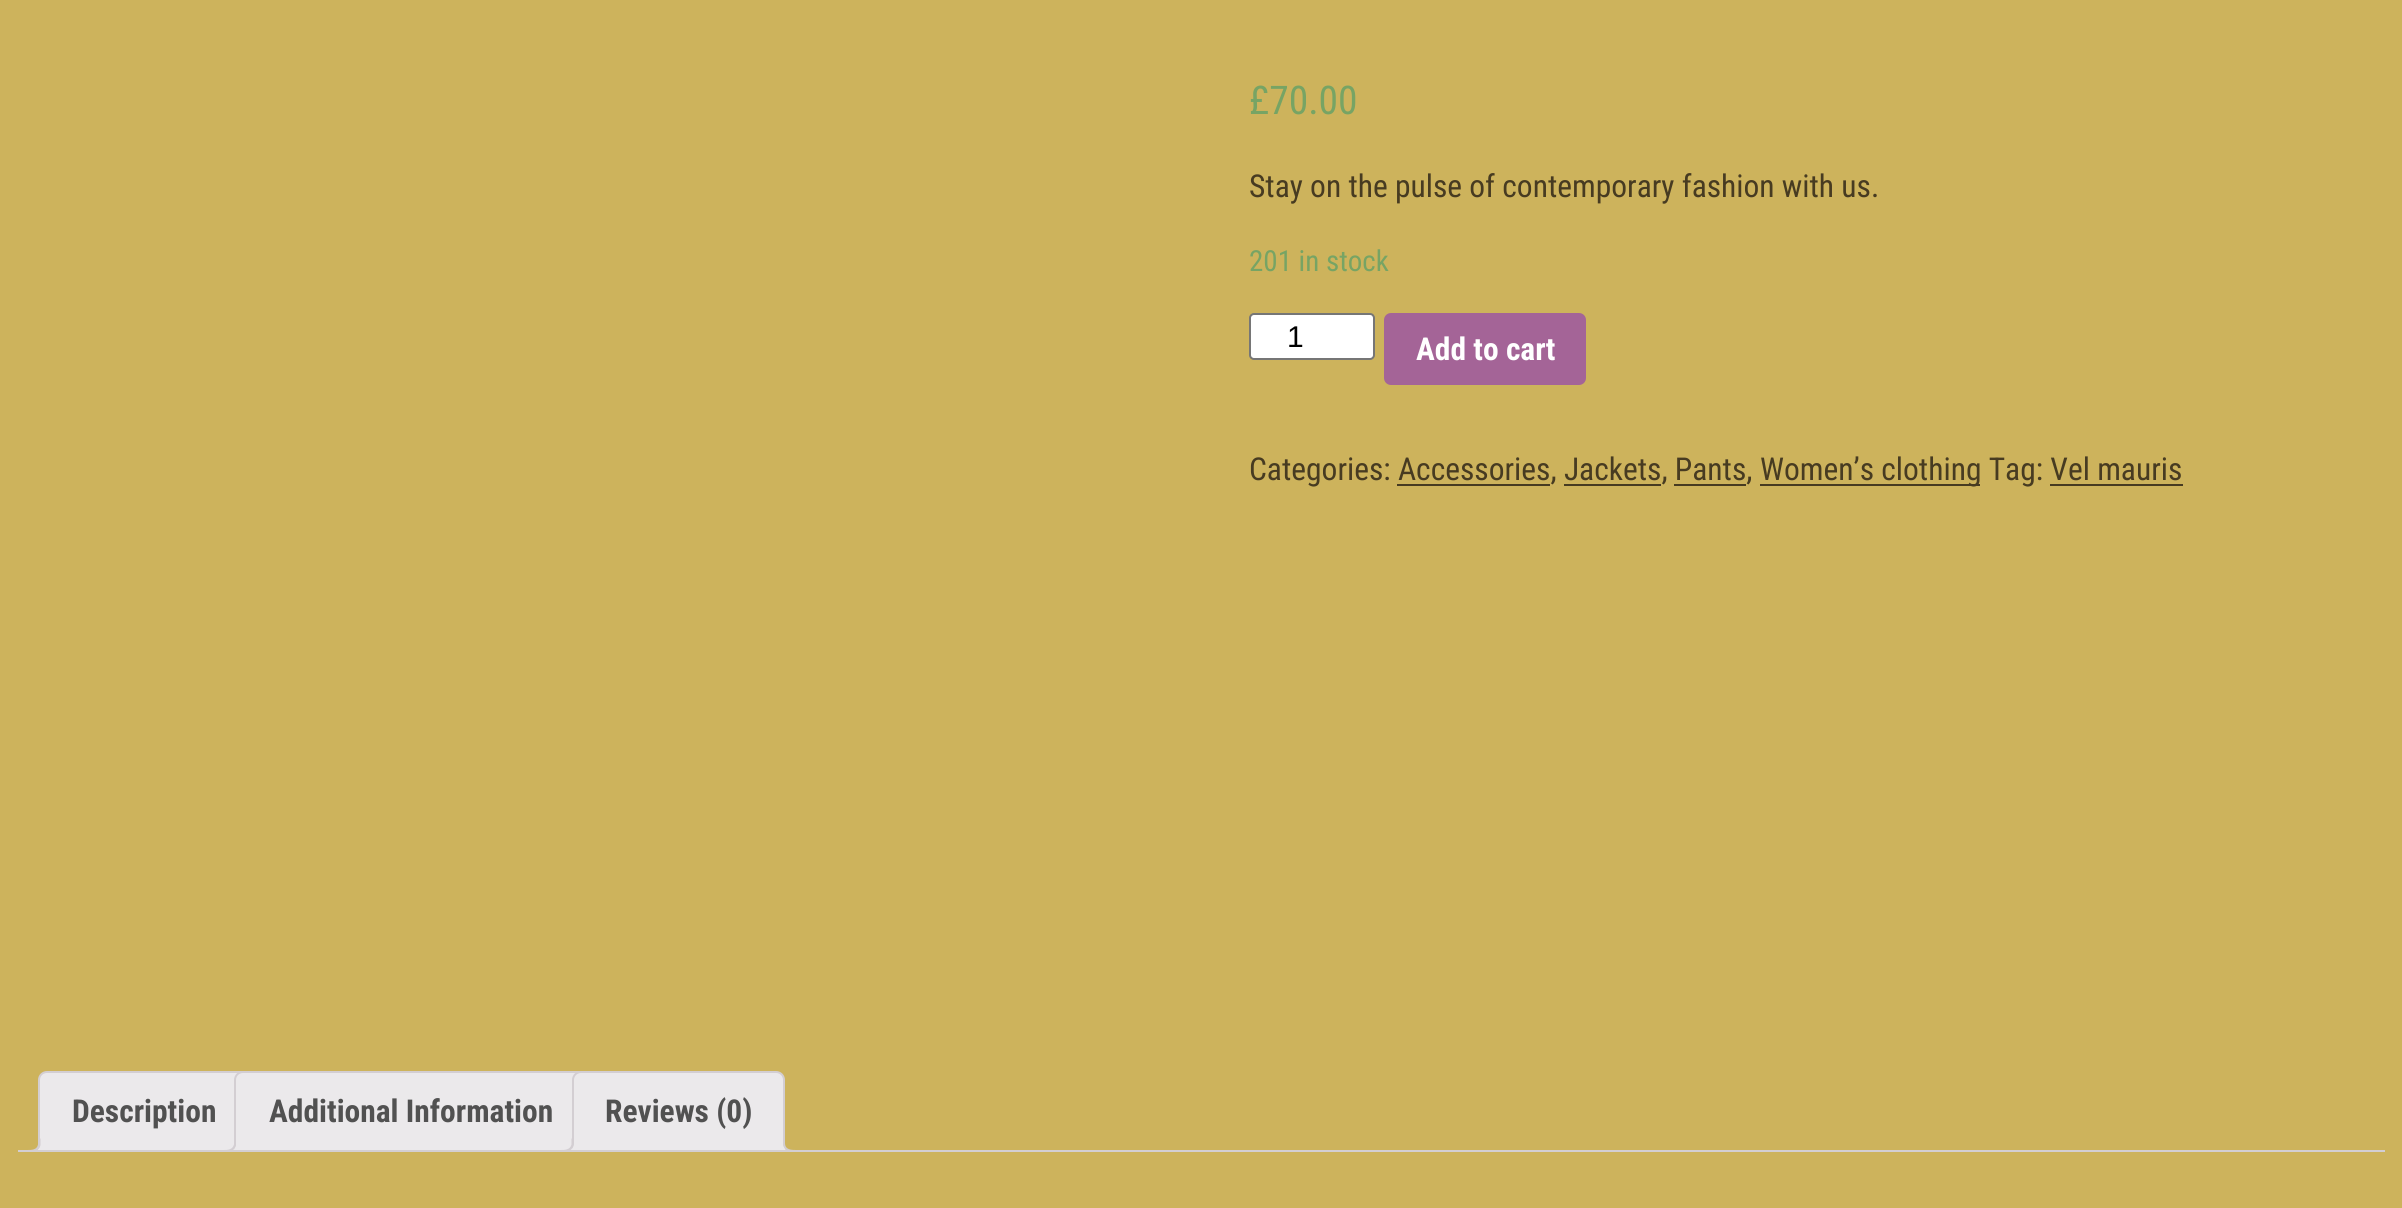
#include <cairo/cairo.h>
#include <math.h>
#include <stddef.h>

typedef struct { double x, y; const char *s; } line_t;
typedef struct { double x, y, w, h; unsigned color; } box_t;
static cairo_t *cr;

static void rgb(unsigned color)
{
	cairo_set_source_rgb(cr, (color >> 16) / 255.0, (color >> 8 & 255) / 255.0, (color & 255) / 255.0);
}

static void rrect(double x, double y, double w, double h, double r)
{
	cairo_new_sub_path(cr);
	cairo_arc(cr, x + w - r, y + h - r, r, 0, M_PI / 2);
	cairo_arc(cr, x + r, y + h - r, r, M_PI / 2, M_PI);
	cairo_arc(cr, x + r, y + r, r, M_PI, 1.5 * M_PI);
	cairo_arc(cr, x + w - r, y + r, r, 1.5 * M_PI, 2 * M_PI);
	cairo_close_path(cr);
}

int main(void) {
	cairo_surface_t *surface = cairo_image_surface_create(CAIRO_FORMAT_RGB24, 2402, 1208);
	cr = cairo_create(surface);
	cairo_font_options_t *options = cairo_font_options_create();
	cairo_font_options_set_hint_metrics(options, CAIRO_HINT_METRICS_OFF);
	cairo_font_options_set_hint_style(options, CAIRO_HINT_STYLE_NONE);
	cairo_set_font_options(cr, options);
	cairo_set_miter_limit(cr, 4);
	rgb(0xcdb35c);
	cairo_paint(cr);
	rgb(0xffffff);
	rrect(1250, 314, 124, 45, 4);
	cairo_fill_preserve(cr);
	rgb(0x767676);
	cairo_stroke(cr);
	rgb(0xa46497);
	rrect(1384, 313, 202, 72, 7);
	cairo_fill(cr);
	{
		static const box_t items[] = {
			{1397, 484, 153, 2, 0x473b21},
			{1564, 484, 97, 2, 0x473b21},
			{1674, 484, 72, 2, 0x473b21},
			{1760, 484, 220, 2, 0x473b21},
			{2050, 484, 133, 2, 0x473b21},
		};
		for (size_t i = 0; i < sizeof items / sizeof *items; i++) {
			rgb(items[i].color);
			cairo_rectangle(cr, items[i].x, items[i].y, items[i].w, items[i].h);
			cairo_fill(cr);
		}
	}
	rgb(0xebe9eb);
	cairo_new_path(cr);
	cairo_move_to(cr, 47, 1072);
	cairo_line_to(cr, 241, 1072);
	cairo_curve_to(cr, 245.5, 1072, 249, 1075.5, 249, 1080);
	cairo_line_to(cr, 249, 1151);
	cairo_line_to(cr, 39, 1151);
	cairo_line_to(cr, 39, 1080);
	cairo_curve_to(cr, 39, 1075.5, 42.5, 1072, 47, 1072);
	cairo_close_path(cr);
	cairo_fill_preserve(cr);
	rgb(0xd3ced2);
	cairo_stroke(cr);
	cairo_save(cr);
	cairo_rectangle(cr, 18, 1071, 2367, 81);
	cairo_clip(cr);
	rgb(0xebe9eb);
	cairo_new_path(cr);
	cairo_move_to(cr, 32, 1152);
	cairo_line_to(cr, 32, 1157);
	cairo_line_to(cr, 38, 1157);
	cairo_curve_to(cr, 45, 1155.5, 45, 1149, 45, 1143);
	cairo_line_to(cr, 40.5, 1143);
	cairo_curve_to(cr, 40.5, 1148, 36.5, 1151.5, 32, 1152);
	cairo_close_path(cr);
	cairo_fill(cr);
	cairo_restore(cr);
	cairo_set_fill_rule(cr, CAIRO_FILL_RULE_EVEN_ODD);
	cairo_new_path(cr);
	cairo_move_to(cr, 27, 1138.5);
	cairo_line_to(cr, 40.5, 1138.5);
	cairo_line_to(cr, 40.5, 1145);
	cairo_curve_to(cr, 39, 1152, 32.5, 1152, 27, 1152);
	cairo_close_path(cr);
	cairo_move_to(cr, 27, 1138.5);
	cairo_line_to(cr, 38, 1138.5);
	cairo_line_to(cr, 38, 1144.5);
	cairo_curve_to(cr, 37, 1150, 31.5, 1150, 27, 1150);
	cairo_close_path(cr);
	cairo_fill(cr);
	rgb(0xebe9eb);
	cairo_new_path(cr);
	cairo_move_to(cr, 243, 1072);
	cairo_line_to(cr, 578, 1072);
	cairo_curve_to(cr, 582.5, 1072, 586, 1075.5, 586, 1080);
	cairo_line_to(cr, 586, 1151);
	cairo_line_to(cr, 235, 1151);
	cairo_line_to(cr, 235, 1080);
	cairo_curve_to(cr, 235, 1075.5, 238.5, 1072, 243, 1072);
	cairo_close_path(cr);
	cairo_fill_preserve(cr);
	rgb(0xd3ced2);
	cairo_stroke(cr);
	cairo_save(cr);
	cairo_set_fill_rule(cr, CAIRO_FILL_RULE_WINDING);
	cairo_rectangle(cr, 18, 1071, 2367, 81);
	cairo_clip(cr);
	rgb(0xebe9eb);
	cairo_new_path(cr);
	cairo_move_to(cr, 227, 1152);
	cairo_line_to(cr, 227, 1157);
	cairo_curve_to(cr, 233, 1157, 239.5, 1157, 241, 1150);
	cairo_line_to(cr, 241, 1143);
	cairo_line_to(cr, 236, 1143);
	cairo_curve_to(cr, 236, 1148, 232, 1152, 227, 1152);
	cairo_close_path(cr);
	cairo_fill(cr);
	cairo_restore(cr);
	cairo_new_path(cr);
	cairo_move_to(cr, 223, 1138.5);
	cairo_line_to(cr, 236, 1138.5);
	cairo_line_to(cr, 236, 1145);
	cairo_curve_to(cr, 234.5, 1152, 228.5, 1152, 223, 1152);
	cairo_close_path(cr);
	cairo_move_to(cr, 223, 1138.5);
	cairo_line_to(cr, 234, 1138.5);
	cairo_line_to(cr, 234, 1144.5);
	cairo_curve_to(cr, 232.5, 1150, 227.5, 1150, 223, 1150);
	cairo_close_path(cr);
	cairo_fill(cr);
	rgb(0xebe9eb);
	cairo_new_path(cr);
	cairo_move_to(cr, 581, 1072);
	cairo_line_to(cr, 776, 1072);
	cairo_curve_to(cr, 780.5, 1072, 784, 1075.5, 784, 1080);
	cairo_line_to(cr, 784, 1151);
	cairo_line_to(cr, 573, 1151);
	cairo_line_to(cr, 573, 1080);
	cairo_curve_to(cr, 573, 1075.5, 576.5, 1072, 581, 1072);
	cairo_close_path(cr);
	cairo_fill_preserve(cr);
	rgb(0xd3ced2);
	cairo_stroke(cr);
	cairo_save(cr);
	cairo_set_fill_rule(cr, CAIRO_FILL_RULE_WINDING);
	cairo_rectangle(cr, 18, 1071, 2367, 81);
	cairo_clip(cr);
	rgb(0xebe9eb);
	cairo_new_path(cr);
	cairo_move_to(cr, 565, 1152);
	cairo_line_to(cr, 565, 1157);
	cairo_line_to(cr, 571, 1157);
	cairo_curve_to(cr, 578, 1155.5, 578, 1149, 578, 1143);
	cairo_line_to(cr, 574, 1143);
	cairo_curve_to(cr, 574, 1148, 570, 1152, 565, 1152);
	cairo_close_path(cr);
	cairo_fill(cr);
	cairo_restore(cr);
	cairo_new_path(cr);
	cairo_move_to(cr, 560, 1138.5);
	cairo_line_to(cr, 574, 1138.5);
	cairo_line_to(cr, 573.5, 1145);
	cairo_curve_to(cr, 572, 1152, 566, 1152, 560, 1152);
	cairo_close_path(cr);
	cairo_move_to(cr, 560, 1138.5);
	cairo_line_to(cr, 571.5, 1138.5);
	cairo_line_to(cr, 571.5, 1144.5);
	cairo_curve_to(cr, 570, 1150, 565, 1150, 560, 1150);
	cairo_close_path(cr);
	cairo_fill(cr);
	cairo_save(cr);
	cairo_set_fill_rule(cr, CAIRO_FILL_RULE_WINDING);
	cairo_rectangle(cr, 18, 1071, 2367, 81);
	cairo_clip(cr);
	rgb(0xebe9eb);
	cairo_new_path(cr);
	cairo_move_to(cr, 779, 1143);
	cairo_curve_to(cr, 779, 1149, 779, 1155.5, 786, 1157);
	cairo_line_to(cr, 792, 1157);
	cairo_line_to(cr, 792, 1152);
	cairo_curve_to(cr, 787, 1152, 783, 1148, 783, 1143);
	cairo_close_path(cr);
	cairo_fill(cr);
	cairo_restore(cr);
	cairo_new_path(cr);
	cairo_move_to(cr, 783, 1138.5);
	cairo_line_to(cr, 796.5, 1138.5);
	cairo_line_to(cr, 796.5, 1152);
	cairo_line_to(cr, 792, 1152);
	cairo_curve_to(cr, 787, 1152, 783, 1148, 783, 1143);
	cairo_close_path(cr);
	cairo_move_to(cr, 785, 1138.5);
	cairo_line_to(cr, 796.5, 1138.5);
	cairo_line_to(cr, 796.5, 1150);
	cairo_curve_to(cr, 791.5, 1150, 785, 1150, 785, 1143);
	cairo_close_path(cr);
	cairo_fill(cr);
	cairo_rectangle(cr, 18, 1150, 2367, 2);
	cairo_fill(cr);
	cairo_select_font_face(cr, "Roboto Condensed", CAIRO_FONT_SLANT_NORMAL, CAIRO_FONT_WEIGHT_NORMAL);
	cairo_set_font_size(cr, 39.5);
	rgb(0x77a464);
	cairo_move_to(cr, 1249, 114);
	cairo_show_text(cr, "£70.00");
	cairo_set_font_size(cr, 31.5);
	rgb(0x473b21);
	cairo_move_to(cr, 1249, 197);
	cairo_show_text(cr, "Stay on the pulse of contemporary fashion with us.");
	cairo_set_font_size(cr, 29);
	rgb(0x77a464);
	cairo_move_to(cr, 1249, 271);
	cairo_show_text(cr, "201 in stock");
	cairo_select_font_face(cr, "Liberation Sans", CAIRO_FONT_SLANT_NORMAL, CAIRO_FONT_WEIGHT_NORMAL);
	cairo_set_font_size(cr, 30);
	rgb(0x000000);
	cairo_move_to(cr, 1287, 347);
	cairo_show_text(cr, "1");
	cairo_select_font_face(cr, "Roboto Condensed", CAIRO_FONT_SLANT_NORMAL, CAIRO_FONT_WEIGHT_BOLD);
	cairo_set_font_size(cr, 31.5);
	rgb(0xffffff);
	cairo_move_to(cr, 1416, 360);
	cairo_show_text(cr, "Add to cart");
	cairo_select_font_face(cr, "Roboto Condensed", CAIRO_FONT_SLANT_NORMAL, CAIRO_FONT_WEIGHT_NORMAL);
	rgb(0x473b21);
	cairo_move_to(cr, 1249, 480);
	cairo_show_text(cr, "Categories: Accessories, Jackets, Pants,");
	cairo_move_to(cr, 1760, 480);
	cairo_show_text(cr, "Women’s clothing Tag: Vel mauris");
	cairo_select_font_face(cr, "Roboto Condensed", CAIRO_FONT_SLANT_NORMAL, CAIRO_FONT_WEIGHT_BOLD);
	rgb(0x515151);
	{
		static const line_t items[] = {
			{72, 1122, "Description"},
			{269, 1122, "Additional Information"},
			{605, 1122, "Reviews (0)"},
		};
		for (size_t i = 0; i < sizeof items / sizeof *items; i++) {
			cairo_move_to(cr, items[i].x, items[i].y);
			cairo_show_text(cr, items[i].s);
		}
	}
	cairo_surface_write_to_png(surface, "page.png");
	cairo_font_options_destroy(options);
	cairo_destroy(cr);
	cairo_surface_destroy(surface);
	return 0;
}
